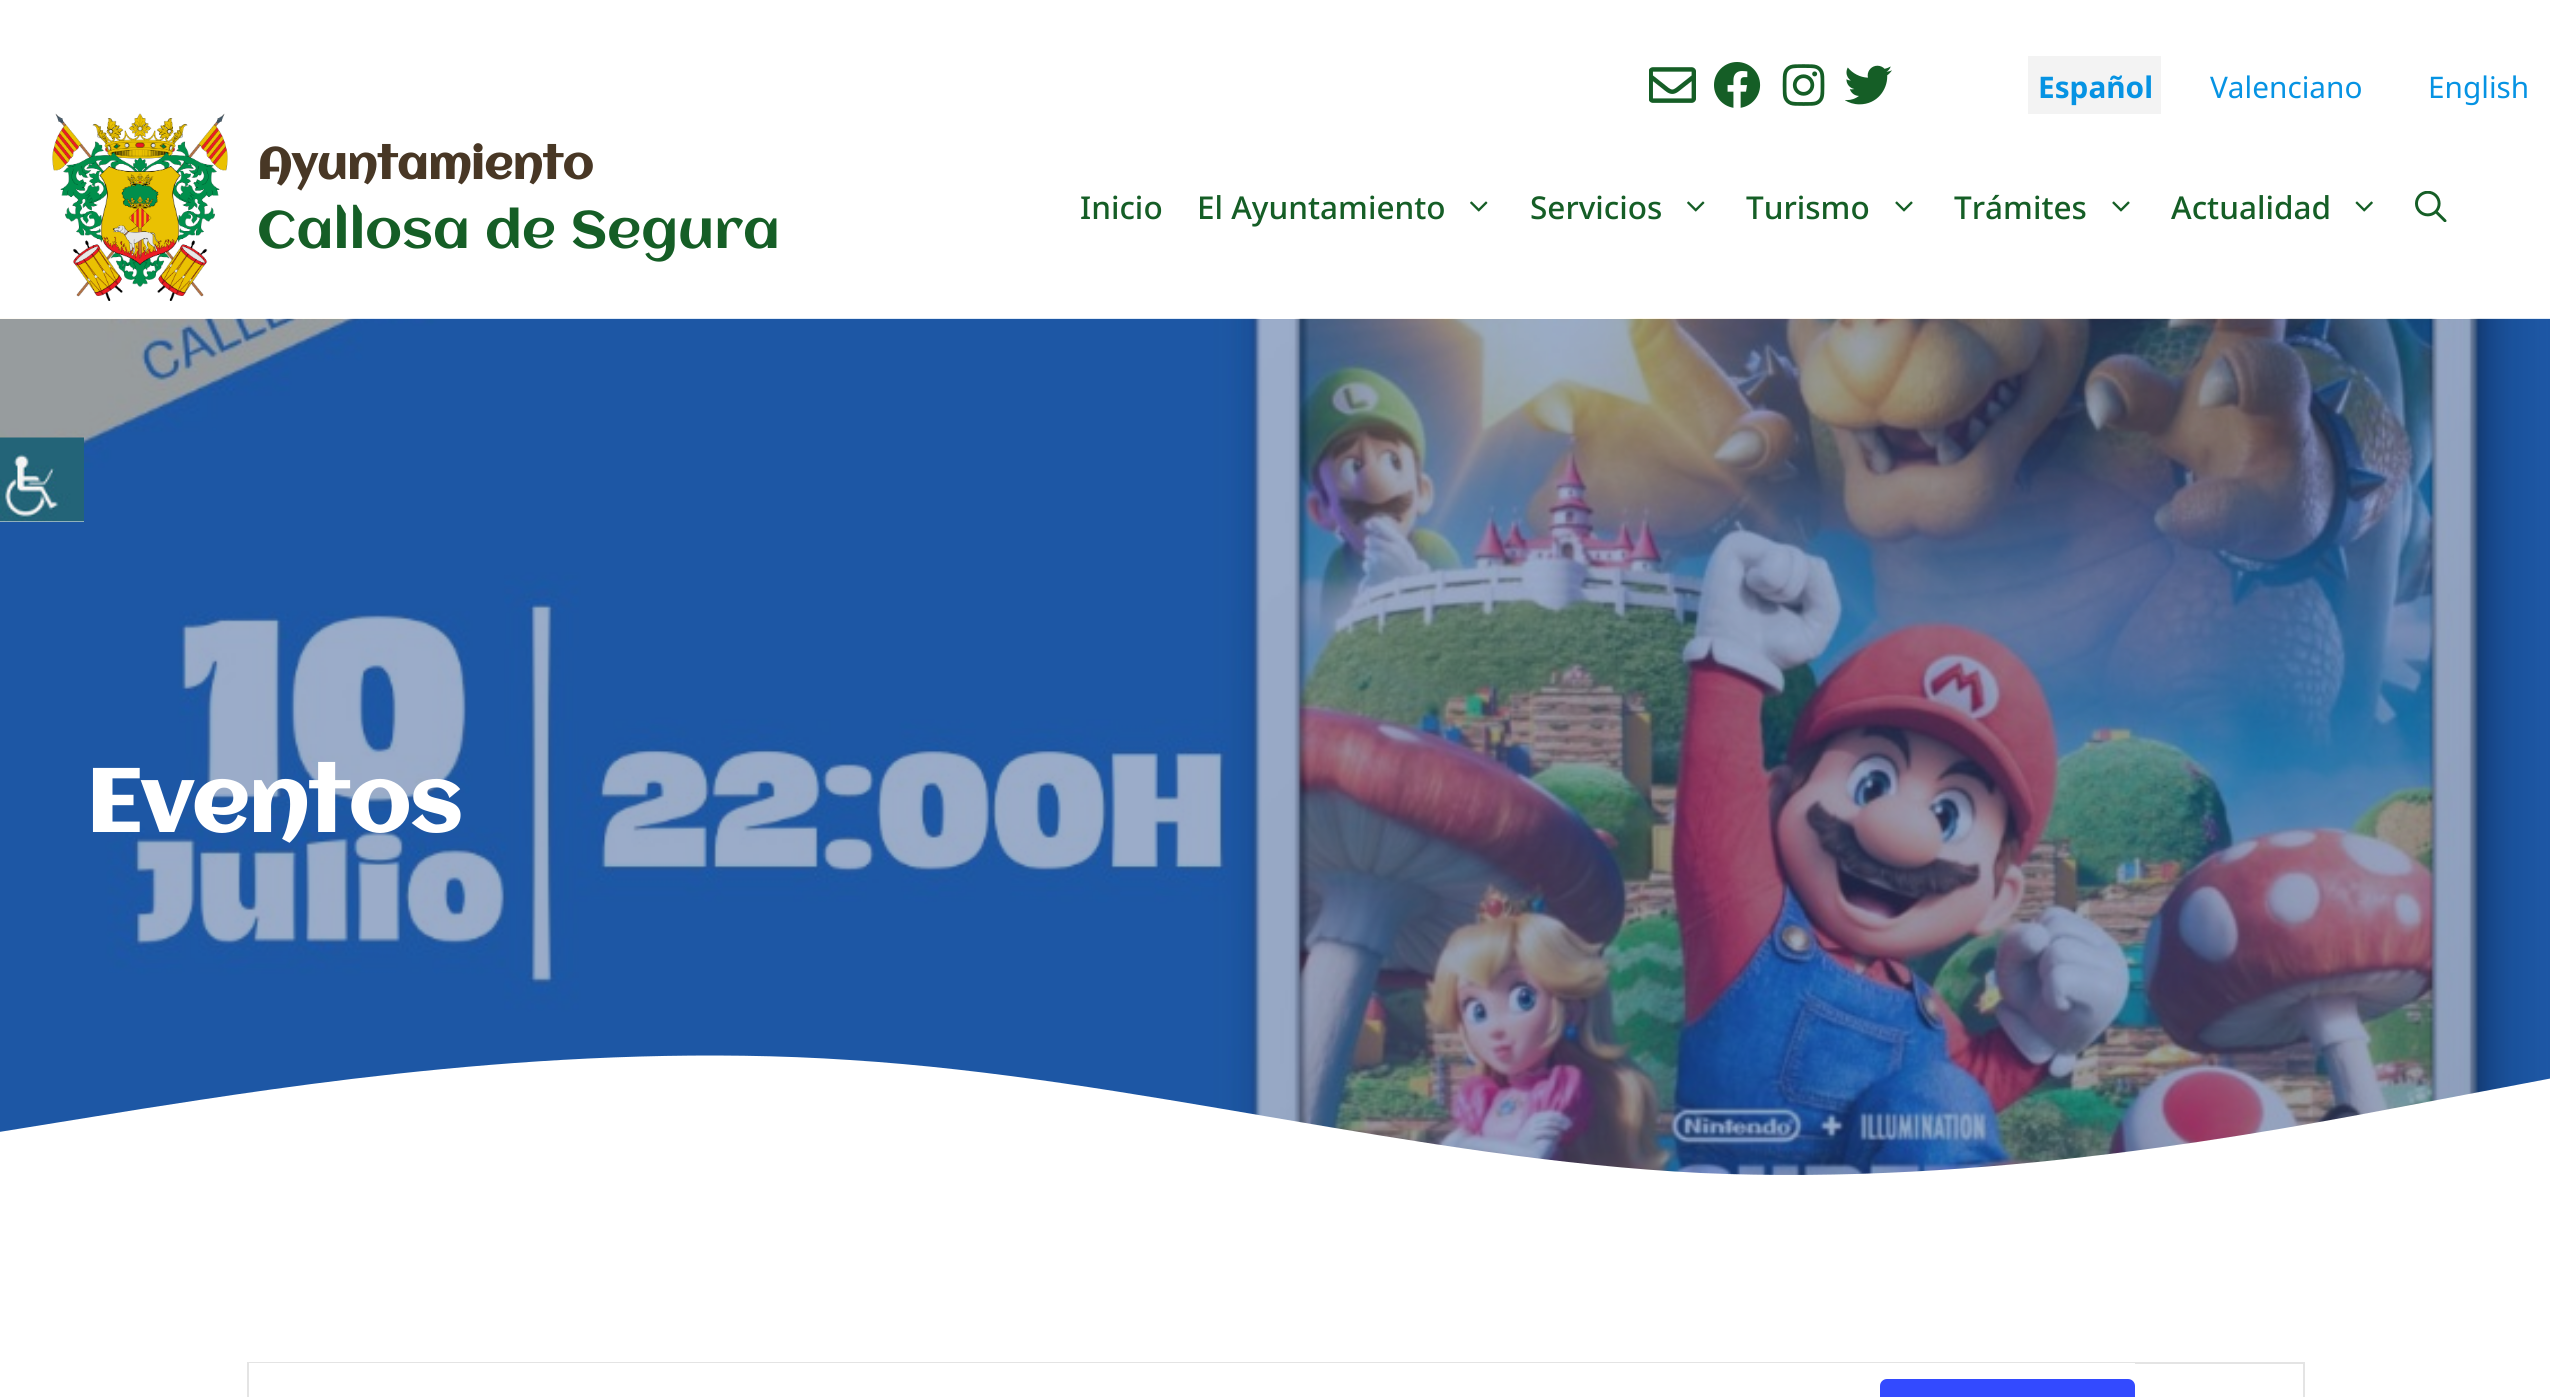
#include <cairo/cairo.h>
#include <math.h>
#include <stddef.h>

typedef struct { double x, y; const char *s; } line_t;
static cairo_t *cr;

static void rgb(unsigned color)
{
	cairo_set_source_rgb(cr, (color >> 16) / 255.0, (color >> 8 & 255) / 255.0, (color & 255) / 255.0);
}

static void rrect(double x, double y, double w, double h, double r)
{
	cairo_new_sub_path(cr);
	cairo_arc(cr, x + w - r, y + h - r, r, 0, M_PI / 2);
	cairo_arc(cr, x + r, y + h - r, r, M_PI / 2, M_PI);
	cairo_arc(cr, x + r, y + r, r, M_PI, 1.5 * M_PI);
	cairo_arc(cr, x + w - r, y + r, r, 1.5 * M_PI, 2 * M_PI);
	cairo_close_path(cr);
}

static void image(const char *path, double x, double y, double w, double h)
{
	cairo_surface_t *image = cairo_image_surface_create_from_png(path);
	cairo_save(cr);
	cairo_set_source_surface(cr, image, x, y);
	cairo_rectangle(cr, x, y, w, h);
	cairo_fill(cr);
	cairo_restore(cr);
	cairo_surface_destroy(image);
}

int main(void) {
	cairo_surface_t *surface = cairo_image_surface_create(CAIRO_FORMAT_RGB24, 2550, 1397);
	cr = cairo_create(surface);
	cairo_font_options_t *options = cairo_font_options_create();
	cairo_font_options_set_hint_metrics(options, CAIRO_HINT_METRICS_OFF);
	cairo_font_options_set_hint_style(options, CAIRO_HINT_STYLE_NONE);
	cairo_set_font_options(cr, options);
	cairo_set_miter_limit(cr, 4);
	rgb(0xffffff);
	cairo_paint(cr);
	image("img/1.png", 1649, 67, 47, 36);
	image("img/2.png", 1714, 62, 47, 46);
	image("img/3.png", 1782, 64, 43, 42);
	image("img/4.png", 1845, 65, 47, 40);
	rgb(0xf3f3f3);
	cairo_rectangle(cr, 2028, 56, 133, 58);
	cairo_fill(cr);
	image("img/5.png", 52, 113, 176, 188);
	image("img/6.png", 1470, 201, 18, 11);
	image("img/6.png", 1687, 201, 18, 11);
	image("img/7.png", 1895, 201, 18, 11);
	image("img/7.png", 2112, 201, 18, 11);
	image("img/8.png", 2355, 201, 18, 11);
	image("img/9.png", 2415, 191, 32, 31);
	rgb(0x052f77);
	cairo_rectangle(cr, 0, 319, 2550, 856);
	cairo_fill(cr);
	image("img/11.png", 0, 318, 2550, 857);
	rgb(0xffffff);
	cairo_rectangle(cr, 0, 521, 84, 1);
	cairo_fill(cr);
	image("img/10.png", 0, 437, 84, 85);
	cairo_save(cr);
	cairo_rectangle(cr, 0, 1055, 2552, 139);
	cairo_clip(cr);
	cairo_new_path(cr);
	cairo_move_to(cr, -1, 1195);
	cairo_line_to(cr, 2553, 1195);
	cairo_line_to(cr, 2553, 1078);
	cairo_line_to(cr, 2411, 1105);
	cairo_curve_to(cr, 2269, 1132, 1985, 1186, 1701, 1173);
	cairo_curve_to(cr, 1418, 1159, 1134, 1078, 850, 1060);
	cairo_curve_to(cr, 566, 1041, 283, 1087, 141, 1109);
	cairo_line_to(cr, -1, 1132);
	cairo_close_path(cr);
	cairo_fill(cr);
	cairo_restore(cr);
	cairo_rectangle(cr, 248, 1363, 2056, 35);
	rgb(0xe4e4e4);
	cairo_stroke(cr);
	rgb(0xffffff);
	cairo_rectangle(cr, 249, 1363, 1886, 1);
	cairo_fill(cr);
	rgb(0x334aff);
	rrect(1880, 1379, 255, 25, 7);
	cairo_fill(cr);
	cairo_select_font_face(cr, "Noto Sans", CAIRO_FONT_SLANT_NORMAL, CAIRO_FONT_WEIGHT_BOLD);
	cairo_set_font_size(cr, 29.75);
	rgb(0x0693e3);
	cairo_move_to(cr, 2038, 98);
	cairo_show_text(cr, "Español");
	cairo_select_font_face(cr, "Noto Sans", CAIRO_FONT_SLANT_NORMAL, CAIRO_FONT_WEIGHT_NORMAL);
	cairo_move_to(cr, 2210, 98);
	cairo_show_text(cr, "Valenciano");
	cairo_move_to(cr, 2428, 98);
	cairo_show_text(cr, "English");
	cairo_select_font_face(cr, "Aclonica", CAIRO_FONT_SLANT_NORMAL, CAIRO_FONT_WEIGHT_BOLD);
	cairo_set_font_size(cr, 43.75);
	rgb(0x483725);
	cairo_move_to(cr, 257, 179);
	cairo_show_text(cr, "Ayuntamiento");
	cairo_select_font_face(cr, "Aclonica", CAIRO_FONT_SLANT_NORMAL, CAIRO_FONT_WEIGHT_NORMAL);
	cairo_set_font_size(cr, 52.5);
	rgb(0x155e26);
	cairo_move_to(cr, 257, 248);
	cairo_show_text(cr, "Callosa de Segura");
	cairo_select_font_face(cr, "Noto Sans Medium", CAIRO_FONT_SLANT_NORMAL, CAIRO_FONT_WEIGHT_NORMAL);
	cairo_set_font_size(cr, 31.5);
	{
		static const line_t items[] = {
			{1080, 219, "Inicio"},
			{1197, 219, "El Ayuntamiento"},
			{1530, 219, "Servicios"},
			{1746, 219, "Turismo"},
			{1954, 219, "Trámites"},
			{2171, 219, "Actualidad"},
		};
		for (size_t i = 0; i < sizeof items / sizeof *items; i++) {
			cairo_move_to(cr, items[i].x, items[i].y);
			cairo_show_text(cr, items[i].s);
		}
	}
	cairo_select_font_face(cr, "Aclonica", CAIRO_FONT_SLANT_NORMAL, CAIRO_FONT_WEIGHT_BOLD);
	cairo_set_font_size(cr, 87.5);
	rgb(0xffffff);
	cairo_move_to(cr, 86, 832);
	cairo_show_text(cr, "Eventos");
	cairo_surface_write_to_png(surface, "page.png");
	cairo_font_options_destroy(options);
	cairo_destroy(cr);
	cairo_surface_destroy(surface);
	return 0;
}
